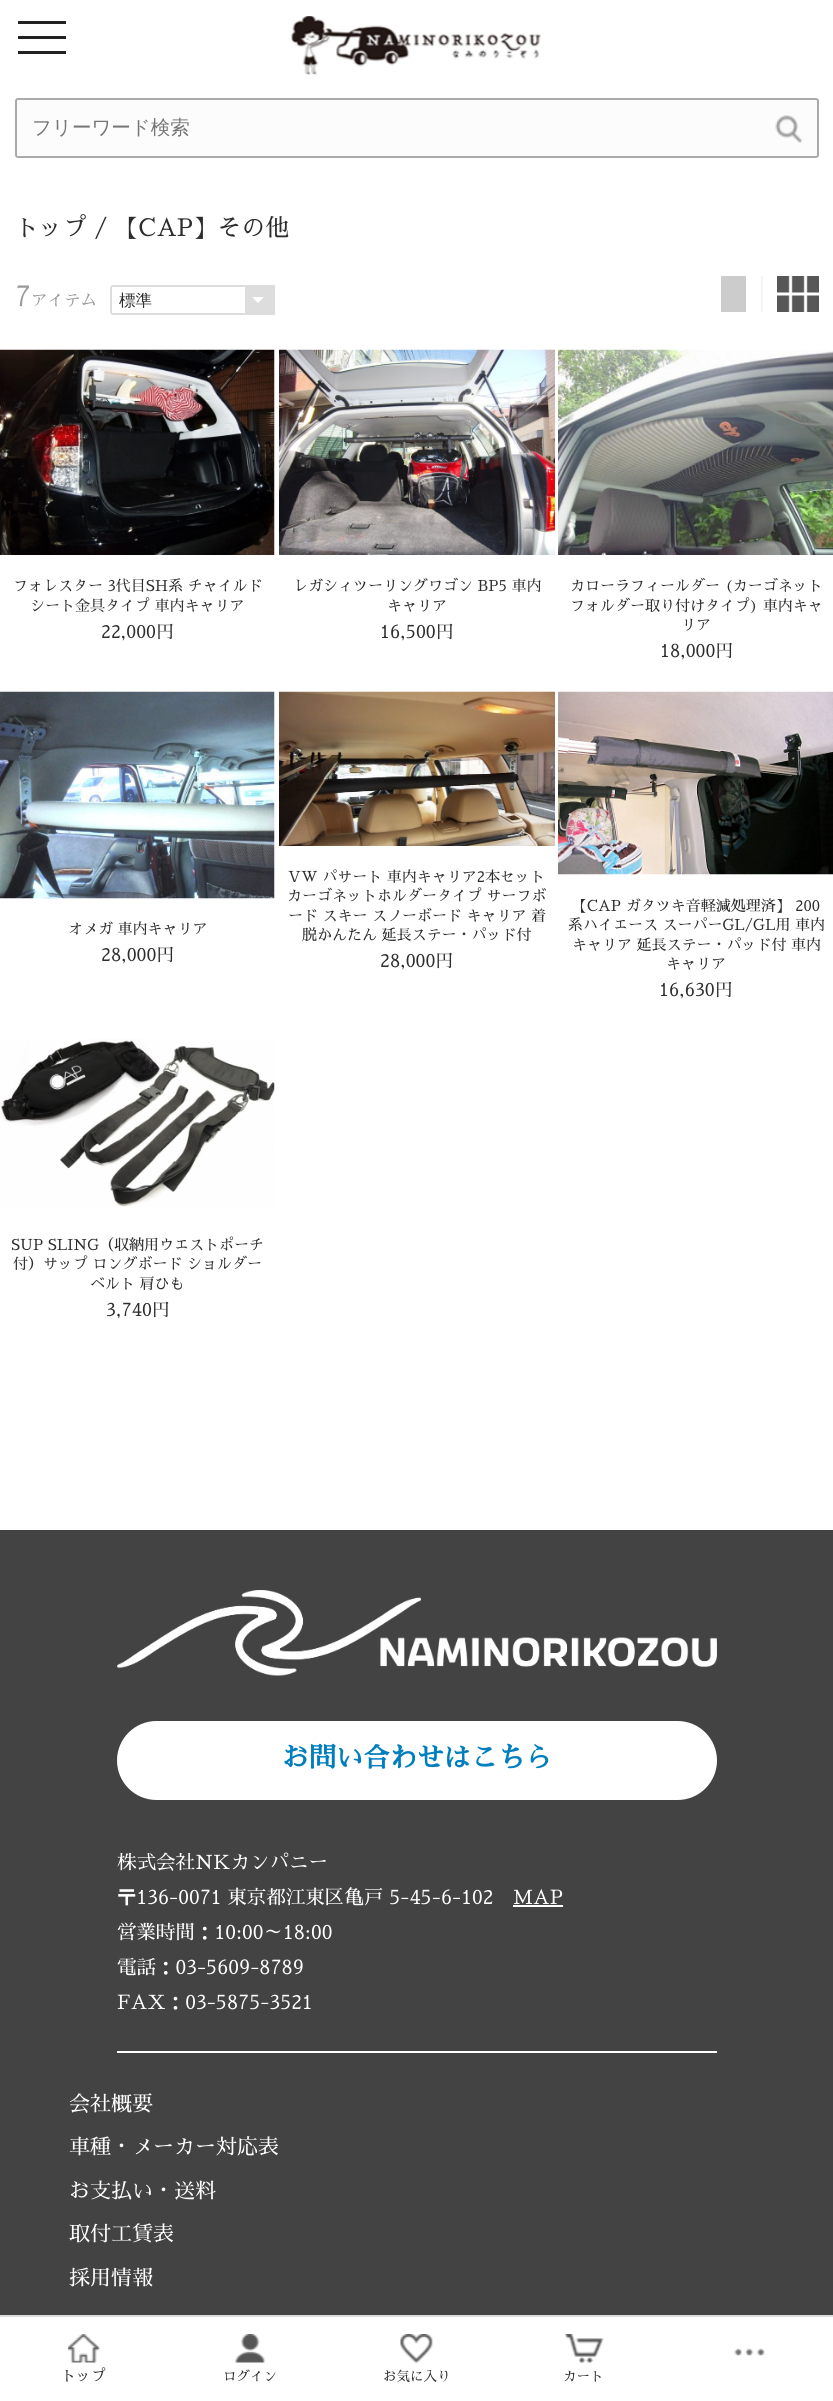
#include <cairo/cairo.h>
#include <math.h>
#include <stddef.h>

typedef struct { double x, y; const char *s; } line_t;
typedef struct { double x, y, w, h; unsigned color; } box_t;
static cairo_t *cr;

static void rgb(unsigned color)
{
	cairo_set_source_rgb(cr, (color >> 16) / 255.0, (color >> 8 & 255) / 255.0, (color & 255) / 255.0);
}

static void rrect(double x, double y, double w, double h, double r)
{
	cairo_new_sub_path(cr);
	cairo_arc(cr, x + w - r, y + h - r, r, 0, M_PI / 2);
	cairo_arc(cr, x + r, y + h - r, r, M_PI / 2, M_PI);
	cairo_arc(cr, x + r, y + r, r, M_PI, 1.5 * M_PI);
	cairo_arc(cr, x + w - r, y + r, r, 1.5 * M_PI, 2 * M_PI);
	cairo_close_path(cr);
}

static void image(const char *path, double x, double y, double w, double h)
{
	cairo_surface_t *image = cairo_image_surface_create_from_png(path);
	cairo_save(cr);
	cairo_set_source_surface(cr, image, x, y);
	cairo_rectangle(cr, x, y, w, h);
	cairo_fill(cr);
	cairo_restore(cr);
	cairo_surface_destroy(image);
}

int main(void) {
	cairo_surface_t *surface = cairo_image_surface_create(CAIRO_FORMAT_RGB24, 833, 2401);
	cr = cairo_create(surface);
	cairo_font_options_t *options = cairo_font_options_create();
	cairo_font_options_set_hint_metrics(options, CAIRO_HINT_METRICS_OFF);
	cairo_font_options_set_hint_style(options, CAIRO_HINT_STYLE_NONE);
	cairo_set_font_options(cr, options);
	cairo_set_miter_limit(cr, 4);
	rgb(0xffffff);
	cairo_paint(cr);
	{
		static const box_t items[] = {
			{18, 36, 48, 3, 0x222222},
			{18, 21, 48, 3, 0x222222},
			{18, 51, 48, 3, 0x222222},
		};
		for (size_t i = 0; i < sizeof items / sizeof *items; i++) {
			rgb(items[i].color);
			cairo_rectangle(cr, items[i].x, items[i].y, items[i].w, items[i].h);
			cairo_fill(cr);
		}
	}
	image("img/1.png", 291, 16, 250, 59);
	rgb(0xfcfcfc);
	rrect(16, 99, 802, 58, 2);
	cairo_fill_preserve(cr);
	rgb(0xaaaaaa);
	cairo_stroke(cr);
	image("img/2.png", 775, 115, 28, 28);
	rgb(0xdddddd);
	cairo_rectangle(cr, 245, 285, 30, 30);
	cairo_fill(cr);
	rgb(0xffffff);
	cairo_new_path(cr);
	cairo_move_to(cr, 252, 297);
	cairo_line_to(cr, 264, 297);
	cairo_line_to(cr, 258, 303);
	cairo_close_path(cr);
	cairo_fill(cr);
	rrect(111, 286, 163, 28, 2);
	rgb(0xdddddd);
	cairo_stroke(cr);
	rgb(0xf5f5f5);
	cairo_rectangle(cr, 761, 276, 2, 36);
	cairo_fill(cr);
	rgb(0xcccccc);
	cairo_rectangle(cr, 721, 276, 25, 36);
	cairo_fill(cr);
	image("img/3.png", 777, 276, 42, 36);
	image("img/4.png", 0, 349, 275, 206);
	image("img/5.png", 279, 349, 276, 206);
	image("img/6.png", 558, 349, 275, 206);
	image("img/7.png", 0, 691, 275, 208);
	image("img/8.png", 279, 691, 276, 155);
	image("img/9.png", 558, 691, 275, 184);
	image("img/10.png", 0, 1039, 275, 168);
	rgb(0x434343);
	cairo_rectangle(cr, 0, 1530, 833, 785);
	cairo_fill(cr);
	image("img/11.png", 117, 1590, 600, 86);
	rgb(0xffffff);
	rrect(117, 1721, 600, 79, 39.5);
	cairo_fill(cr);
	{
		static const box_t items[] = {
			{117, 2051, 600, 2, 0xffffff},
			{513, 1905, 50, 2, 0xffffff},
			{0, 2315, 833, 2, 0xdddddd},
		};
		for (size_t i = 0; i < sizeof items / sizeof *items; i++) {
			rgb(items[i].color);
			cairo_rectangle(cr, items[i].x, items[i].y, items[i].w, items[i].h);
			cairo_fill(cr);
		}
	}
	image("img/12.png", 734, 2348, 31, 8);
	image("img/13.png", 68, 2334, 32, 29);
	image("img/14.png", 235, 2334, 30, 29);
	image("img/15.png", 400, 2334, 33, 29);
	image("img/16.png", 565, 2334, 39, 29);
	cairo_select_font_face(cr, "WenQuanYi Zen Hei Medium", CAIRO_FONT_SLANT_NORMAL, CAIRO_FONT_WEIGHT_NORMAL);
	cairo_set_font_size(cr, 19.5);
	rgb(0x757575);
	cairo_move_to(cr, 32, 134);
	cairo_show_text(cr, "フリーワード検索");
	cairo_select_font_face(cr, "Sawarabi Mincho", CAIRO_FONT_SLANT_NORMAL, CAIRO_FONT_WEIGHT_NORMAL);
	cairo_set_font_size(cr, 24);
	rgb(0x2d2d2d);
	cairo_move_to(cr, 15, 236);
	cairo_show_text(cr, "トップ / 【CAP】その他");
	cairo_set_font_size(cr, 28);
	rgb(0x999999);
	cairo_move_to(cr, 15, 306);
	cairo_show_text(cr, "7");
	cairo_set_font_size(cr, 16.5);
	cairo_move_to(cr, 31, 306);
	cairo_show_text(cr, "アイテム");
	cairo_select_font_face(cr, "WenQuanYi Zen Hei Medium", CAIRO_FONT_SLANT_NORMAL, CAIRO_FONT_WEIGHT_NORMAL);
	rgb(0x2d2d2d);
	cairo_move_to(cr, 119, 306);
	cairo_show_text(cr, "標準");
	cairo_select_font_face(cr, "Sawarabi Mincho", CAIRO_FONT_SLANT_NORMAL, CAIRO_FONT_WEIGHT_NORMAL);
	cairo_set_font_size(cr, 15);
	cairo_move_to(cr, 13, 591);
	cairo_show_text(cr, "フォレスター 3代目SH系 チャイルド");
	cairo_move_to(cr, 30, 611);
	cairo_show_text(cr, "シート金具タイプ 車内キャリア");
	cairo_set_font_size(cr, 18);
	cairo_move_to(cr, 101, 638);
	cairo_show_text(cr, "22,000円");
	cairo_set_font_size(cr, 15);
	cairo_move_to(cr, 293, 591);
	cairo_show_text(cr, "レガシィツーリングワゴン BP5 車内");
	cairo_move_to(cr, 387, 611);
	cairo_show_text(cr, "キャリア");
	cairo_set_font_size(cr, 18);
	cairo_move_to(cr, 380, 638);
	cairo_show_text(cr, "16,500円");
	cairo_save(cr);
	cairo_rectangle(cr, 558, 578, 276, 58);
	cairo_clip(cr);
	cairo_set_font_size(cr, 15);
	cairo_move_to(cr, 570, 591);
	cairo_show_text(cr, "カローラフィールダー (カーゴネット");
	cairo_restore(cr);
	cairo_set_font_size(cr, 15);
	cairo_move_to(cr, 570, 611);
	cairo_show_text(cr, "フォルダー取り付けタイプ) 車内キャ");
	cairo_move_to(cr, 681, 630);
	cairo_show_text(cr, "リア");
	cairo_set_font_size(cr, 18);
	cairo_move_to(cr, 660, 657);
	cairo_show_text(cr, "18,000円");
	cairo_set_font_size(cr, 15);
	cairo_move_to(cr, 68, 934);
	cairo_show_text(cr, "オメガ 車内キャリア");
	cairo_set_font_size(cr, 18);
	cairo_move_to(cr, 101, 961);
	cairo_show_text(cr, "28,000円");
	cairo_set_font_size(cr, 15);
	{
		static const line_t items[] = {
			{288, 882, "VW パサート 車内キャリア2本セット"},
			{287, 901, "カーゴネットホルダータイプ サーフボ"},
			{288, 921, "ード スキー スノーボード キャリア 着"},
			{302, 940, "脱かんたん 延長ステー・パッド付"},
		};
		for (size_t i = 0; i < sizeof items / sizeof *items; i++) {
			cairo_move_to(cr, items[i].x, items[i].y);
			cairo_show_text(cr, items[i].s);
		}
	}
	cairo_set_font_size(cr, 18);
	cairo_move_to(cr, 380, 967);
	cairo_show_text(cr, "28,000円");
	cairo_set_font_size(cr, 15);
	{
		static const line_t items[] = {
			{572, 911, "【CAP ガタツキ音軽減処理済】 200"},
			{568, 930, "系ハイエース スーパーGL/GL用 車内"},
			{572, 950, "キャリア 延長ステー・パッド付 車内"},
			{666, 969, "キャリア"},
		};
		for (size_t i = 0; i < sizeof items / sizeof *items; i++) {
			cairo_move_to(cr, items[i].x, items[i].y);
			cairo_show_text(cr, items[i].s);
		}
	}
	cairo_set_font_size(cr, 18);
	cairo_move_to(cr, 659, 996);
	cairo_show_text(cr, "16,630円");
	cairo_set_font_size(cr, 15);
	{
		static const line_t items[] = {
			{11, 1250, "SUP SLING（収納用ウエストポーチ"},
			{13, 1269, "付）サップ ロングボード ショルダー"},
			{90, 1289, "ベルト 肩ひも"},
		};
		for (size_t i = 0; i < sizeof items / sizeof *items; i++) {
			cairo_move_to(cr, items[i].x, items[i].y);
			cairo_show_text(cr, items[i].s);
		}
	}
	cairo_set_font_size(cr, 18);
	cairo_move_to(cr, 106, 1316);
	cairo_show_text(cr, "3,740円");
	cairo_select_font_face(cr, "Sawarabi Mincho", CAIRO_FONT_SLANT_NORMAL, CAIRO_FONT_WEIGHT_BOLD);
	cairo_set_font_size(cr, 27);
	rgb(0x007ebe);
	cairo_move_to(cr, 282, 1767);
	cairo_show_text(cr, "お問い合わせはこちら");
	cairo_select_font_face(cr, "Sawarabi Mincho", CAIRO_FONT_SLANT_NORMAL, CAIRO_FONT_WEIGHT_NORMAL);
	cairo_set_font_size(cr, 19.5);
	rgb(0xffffff);
	{
		static const line_t items[] = {
			{117, 1869, "株式会社NKカンパニー"},
			{117, 1904, "〒136-0071 東京都江東区亀戸 5-45-6-102"},
			{513, 1904, "MAP"},
			{117, 1939, "営業時間：10:00～18:00"},
			{117, 1974, "電話：03-5609-8789"},
			{117, 2009, "FAX：03-5875-3521"},
		};
		for (size_t i = 0; i < sizeof items / sizeof *items; i++) {
			cairo_move_to(cr, items[i].x, items[i].y);
			cairo_show_text(cr, items[i].s);
		}
	}
	cairo_set_font_size(cr, 21);
	{
		static const line_t items[] = {
			{69, 2111, "会社概要"},
			{69, 2154, "車種・メーカー対応表"},
			{69, 2198, "お支払い・送料"},
			{69, 2241, "取付工賃表"},
			{69, 2285, "採用情報"},
		};
		for (size_t i = 0; i < sizeof items / sizeof *items; i++) {
			cairo_move_to(cr, items[i].x, items[i].y);
			cairo_show_text(cr, items[i].s);
		}
	}
	cairo_set_font_size(cr, 15);
	rgb(0x2d2d2d);
	cairo_move_to(cr, 61, 2381);
	cairo_show_text(cr, "トップ");
	cairo_set_font_size(cr, 13.5);
	{
		static const line_t items[] = {
			{223, 2381, "ログイン"},
			{383, 2381, "お気に入り"},
			{563, 2381, "カート"},
		};
		for (size_t i = 0; i < sizeof items / sizeof *items; i++) {
			cairo_move_to(cr, items[i].x, items[i].y);
			cairo_show_text(cr, items[i].s);
		}
	}
	cairo_surface_write_to_png(surface, "page.png");
	cairo_font_options_destroy(options);
	cairo_destroy(cr);
	cairo_surface_destroy(surface);
	return 0;
}
